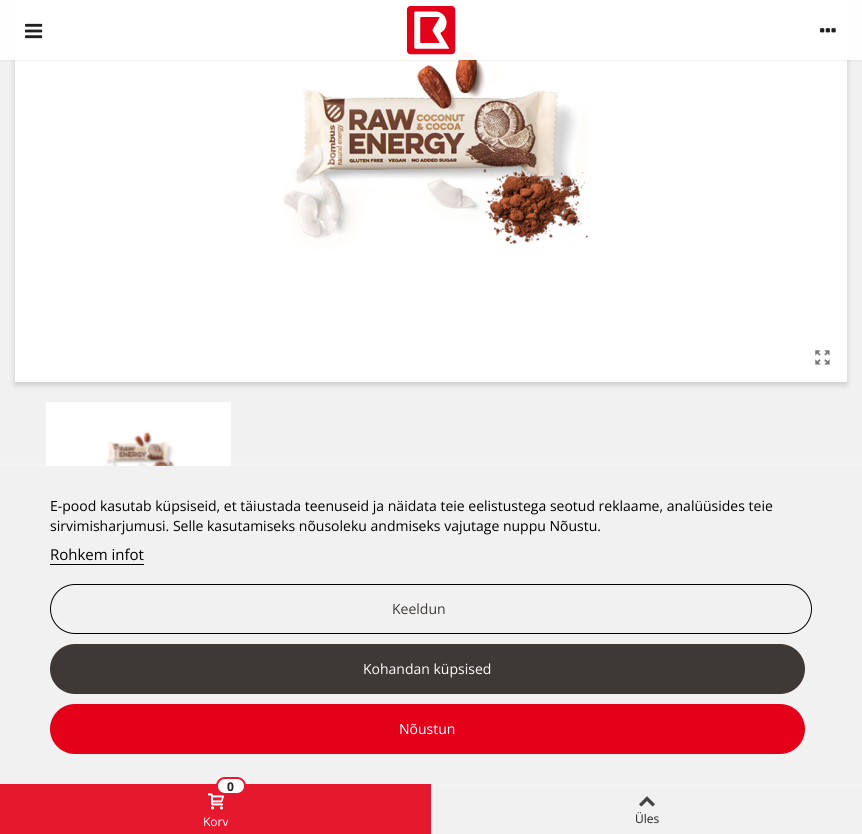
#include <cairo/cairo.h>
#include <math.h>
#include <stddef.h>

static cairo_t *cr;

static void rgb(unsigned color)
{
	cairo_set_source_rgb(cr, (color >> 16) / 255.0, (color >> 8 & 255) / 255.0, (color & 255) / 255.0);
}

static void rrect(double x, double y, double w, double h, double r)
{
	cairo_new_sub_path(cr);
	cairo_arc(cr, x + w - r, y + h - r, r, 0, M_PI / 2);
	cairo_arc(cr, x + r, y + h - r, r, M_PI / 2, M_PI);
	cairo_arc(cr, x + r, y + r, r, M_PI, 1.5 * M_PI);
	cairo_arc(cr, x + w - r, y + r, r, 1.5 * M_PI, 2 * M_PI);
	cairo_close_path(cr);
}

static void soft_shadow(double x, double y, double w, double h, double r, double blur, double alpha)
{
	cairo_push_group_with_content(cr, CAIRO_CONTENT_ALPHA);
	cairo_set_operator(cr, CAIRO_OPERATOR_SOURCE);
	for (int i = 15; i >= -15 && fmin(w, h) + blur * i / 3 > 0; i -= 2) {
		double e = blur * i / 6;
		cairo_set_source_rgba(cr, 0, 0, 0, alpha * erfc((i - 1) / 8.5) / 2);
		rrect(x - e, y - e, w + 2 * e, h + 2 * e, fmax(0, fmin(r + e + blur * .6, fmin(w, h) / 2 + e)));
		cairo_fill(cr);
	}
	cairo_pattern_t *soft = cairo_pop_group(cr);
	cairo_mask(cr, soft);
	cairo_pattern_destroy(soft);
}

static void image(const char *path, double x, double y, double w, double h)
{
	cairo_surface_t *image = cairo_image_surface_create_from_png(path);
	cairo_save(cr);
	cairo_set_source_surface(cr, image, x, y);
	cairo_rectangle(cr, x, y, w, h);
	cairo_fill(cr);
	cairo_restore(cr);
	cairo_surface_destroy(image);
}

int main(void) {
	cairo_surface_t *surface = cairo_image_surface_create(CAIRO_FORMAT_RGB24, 862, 834);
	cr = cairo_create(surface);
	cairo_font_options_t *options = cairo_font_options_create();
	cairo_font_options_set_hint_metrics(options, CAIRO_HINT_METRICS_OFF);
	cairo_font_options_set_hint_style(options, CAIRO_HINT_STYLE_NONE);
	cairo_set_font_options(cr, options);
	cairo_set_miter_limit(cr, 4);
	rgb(0xf1f1f1);
	cairo_paint(cr);
	rgb(0x000000);
	soft_shadow(15, -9, 832, 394, 0, 3, 0.16);
	rgb(0xffffff);
	cairo_rectangle(cr, 15, 0, 832, 382);
	cairo_fill(cr);
	image("img/4.png", 283, 50, 308, 199);
	cairo_save(cr);
	cairo_rectangle(cr, 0, 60, 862, 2);
	cairo_clip(cr);
	rgb(0x000000);
	soft_shadow(0, 0, 862, 60, 0, 2, 0.1);
	cairo_restore(cr);
	cairo_set_source_rgba(cr, 1, 1, 1, 0.95);
	cairo_rectangle(cr, 0, 0, 862, 60);
	cairo_fill(cr);
	image("img/1.png", 25, 23, 18, 16);
	image("img/2.png", 407, 6, 49, 49);
	image("img/3.png", 820, 28, 16, 5);
	image("img/5.png", 815, 350, 15, 15);
	rgb(0xffffff);
	cairo_rectangle(cr, 46, 402, 185, 64);
	cairo_fill(cr);
	image("img/6.png", 103, 431, 73, 35);
	rgb(0xffffff);
	soft_shadow(0, 467, 862, 318, 0, 2.5, 1);
	rgb(0xf1f1f1);
	cairo_rectangle(cr, 0, 466, 862, 318);
	cairo_fill(cr);
	rgb(0x000000);
	cairo_rectangle(cr, 50, 564, 94, 1);
	cairo_fill(cr);
	rrect(50.5, 584.5, 761, 49, 24.5);
	cairo_set_line_width(cr, 1);
	cairo_stroke(cr);
	rgb(0x3e3936);
	rrect(50, 644, 755, 50, 25);
	cairo_fill(cr);
	rgb(0xe50019);
	rrect(50, 704, 755, 50, 25);
	cairo_fill(cr);
	rgb(0xe6182e);
	cairo_rectangle(cr, 0, 784, 431, 50);
	cairo_fill(cr);
	image("img/7.png", 208, 793, 16, 17);
	rgb(0xffffff);
	rrect(217, 778, 28, 16, 8);
	cairo_fill_preserve(cr);
	rgb(0xe6182e);
	cairo_set_line_width(cr, 2);
	cairo_stroke(cr);
	rgb(0xf2f2f2);
	cairo_rectangle(cr, 431, 784, 431, 3);
	cairo_fill(cr);
	image("img/8.png", 639, 796, 16, 11);
	cairo_select_font_face(cr, "Open Sans", CAIRO_FONT_SLANT_NORMAL, CAIRO_FONT_WEIGHT_NORMAL);
	cairo_set_font_size(cr, 14);
	rgb(0x000000);
	cairo_move_to(cr, 50, 511);
	cairo_show_text(cr, "E-pood kasutab küpsiseid, et täiustada teenuseid ja näidata teie eelistustega seotud reklaame, analüüsides teie");
	cairo_move_to(cr, 50, 531);
	cairo_show_text(cr, "sirvimisharjumusi. Selle kasutamiseks nõusoleku andmiseks vajutage nuppu Nõustu.");
	cairo_set_font_size(cr, 15);
	cairo_move_to(cr, 50, 560);
	cairo_show_text(cr, "Rohkem infot");
	cairo_set_font_size(cr, 14);
	rgb(0x3e3936);
	cairo_move_to(cr, 392, 614);
	cairo_show_text(cr, "Keeldun");
	rgb(0xffffff);
	cairo_move_to(cr, 363, 674);
	cairo_show_text(cr, "Kohandan küpsised");
	cairo_move_to(cr, 399, 734);
	cairo_show_text(cr, "Nõustun");
	cairo_select_font_face(cr, "Open Sans", CAIRO_FONT_SLANT_NORMAL, CAIRO_FONT_WEIGHT_BOLD);
	cairo_set_font_size(cr, 12);
	rgb(0x202020);
	cairo_move_to(cr, 227, 791);
	cairo_show_text(cr, "0");
	cairo_select_font_face(cr, "Open Sans", CAIRO_FONT_SLANT_NORMAL, CAIRO_FONT_WEIGHT_NORMAL);
	rgb(0xffffff);
	cairo_move_to(cr, 203, 826);
	cairo_show_text(cr, "Korv");
	rgb(0x202020);
	cairo_move_to(cr, 635, 823);
	cairo_show_text(cr, "Üles");
	cairo_surface_write_to_png(surface, "page.png");
	cairo_font_options_destroy(options);
	cairo_destroy(cr);
	cairo_surface_destroy(surface);
	return 0;
}
